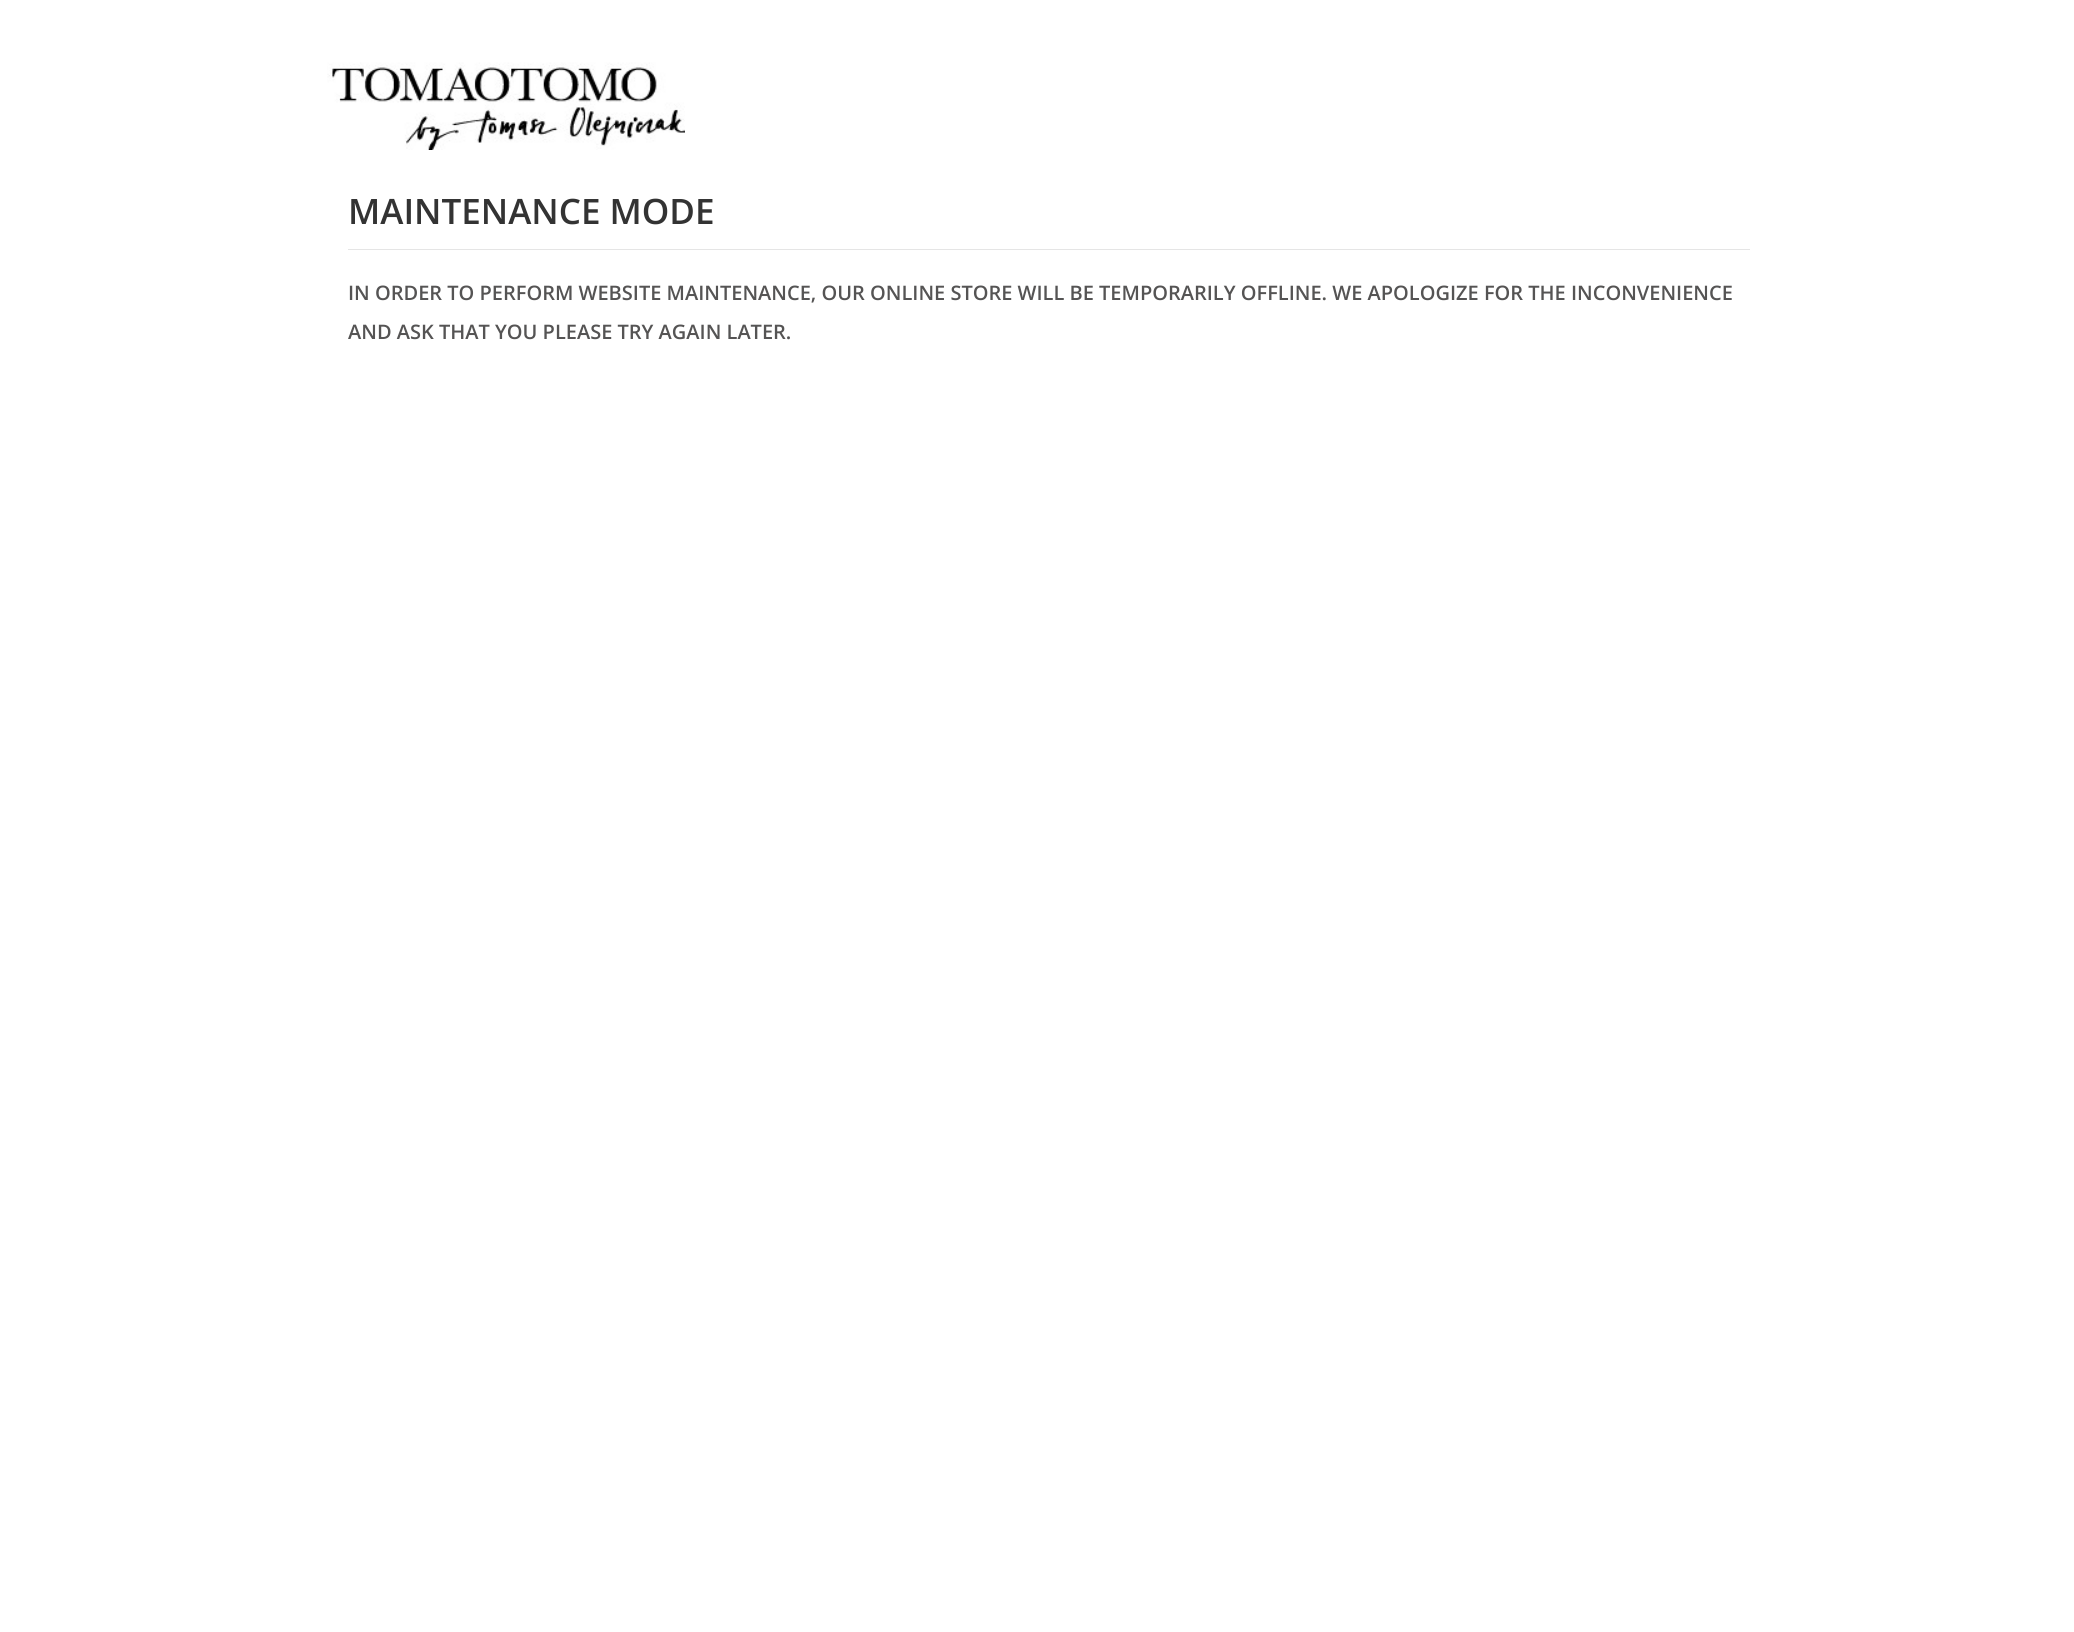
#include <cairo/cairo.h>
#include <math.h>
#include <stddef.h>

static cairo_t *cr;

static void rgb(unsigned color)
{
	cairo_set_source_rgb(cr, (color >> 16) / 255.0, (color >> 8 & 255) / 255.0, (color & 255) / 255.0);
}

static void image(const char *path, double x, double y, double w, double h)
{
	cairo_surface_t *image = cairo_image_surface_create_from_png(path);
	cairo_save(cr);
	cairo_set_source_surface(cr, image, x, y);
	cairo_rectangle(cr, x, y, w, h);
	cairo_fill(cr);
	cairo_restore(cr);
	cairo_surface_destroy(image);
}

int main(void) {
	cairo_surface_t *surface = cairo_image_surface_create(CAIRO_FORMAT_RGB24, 2074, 1632);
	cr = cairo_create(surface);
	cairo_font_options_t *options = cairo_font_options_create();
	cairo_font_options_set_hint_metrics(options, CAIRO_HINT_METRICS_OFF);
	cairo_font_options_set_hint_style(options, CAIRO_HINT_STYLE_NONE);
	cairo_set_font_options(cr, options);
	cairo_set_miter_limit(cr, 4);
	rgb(0xffffff);
	cairo_paint(cr);
	image("img/1.png", 327, 62, 358, 88);
	rgb(0xe5e5e5);
	cairo_rectangle(cr, 348, 249, 1402, 1);
	cairo_fill(cr);
	cairo_select_font_face(cr, "Open Sans SemiBold", CAIRO_FONT_SLANT_NORMAL, CAIRO_FONT_WEIGHT_NORMAL);
	cairo_set_font_size(cr, 35);
	rgb(0x333333);
	cairo_move_to(cr, 348, 224);
	cairo_show_text(cr, "MAINTENANCE MODE");
	cairo_set_font_size(cr, 20);
	rgb(0x555454);
	cairo_move_to(cr, 348, 300);
	cairo_show_text(cr, "IN ORDER TO PERFORM WEBSITE MAINTENANCE, OUR ONLINE STORE WILL BE TEMPORARILY OFFLINE. WE APOLOGIZE FOR THE INCONVENIENCE");
	cairo_move_to(cr, 348, 339);
	cairo_show_text(cr, "AND ASK THAT YOU PLEASE TRY AGAIN LATER.");
	cairo_surface_write_to_png(surface, "page.png");
	cairo_font_options_destroy(options);
	cairo_destroy(cr);
	cairo_surface_destroy(surface);
	return 0;
}
